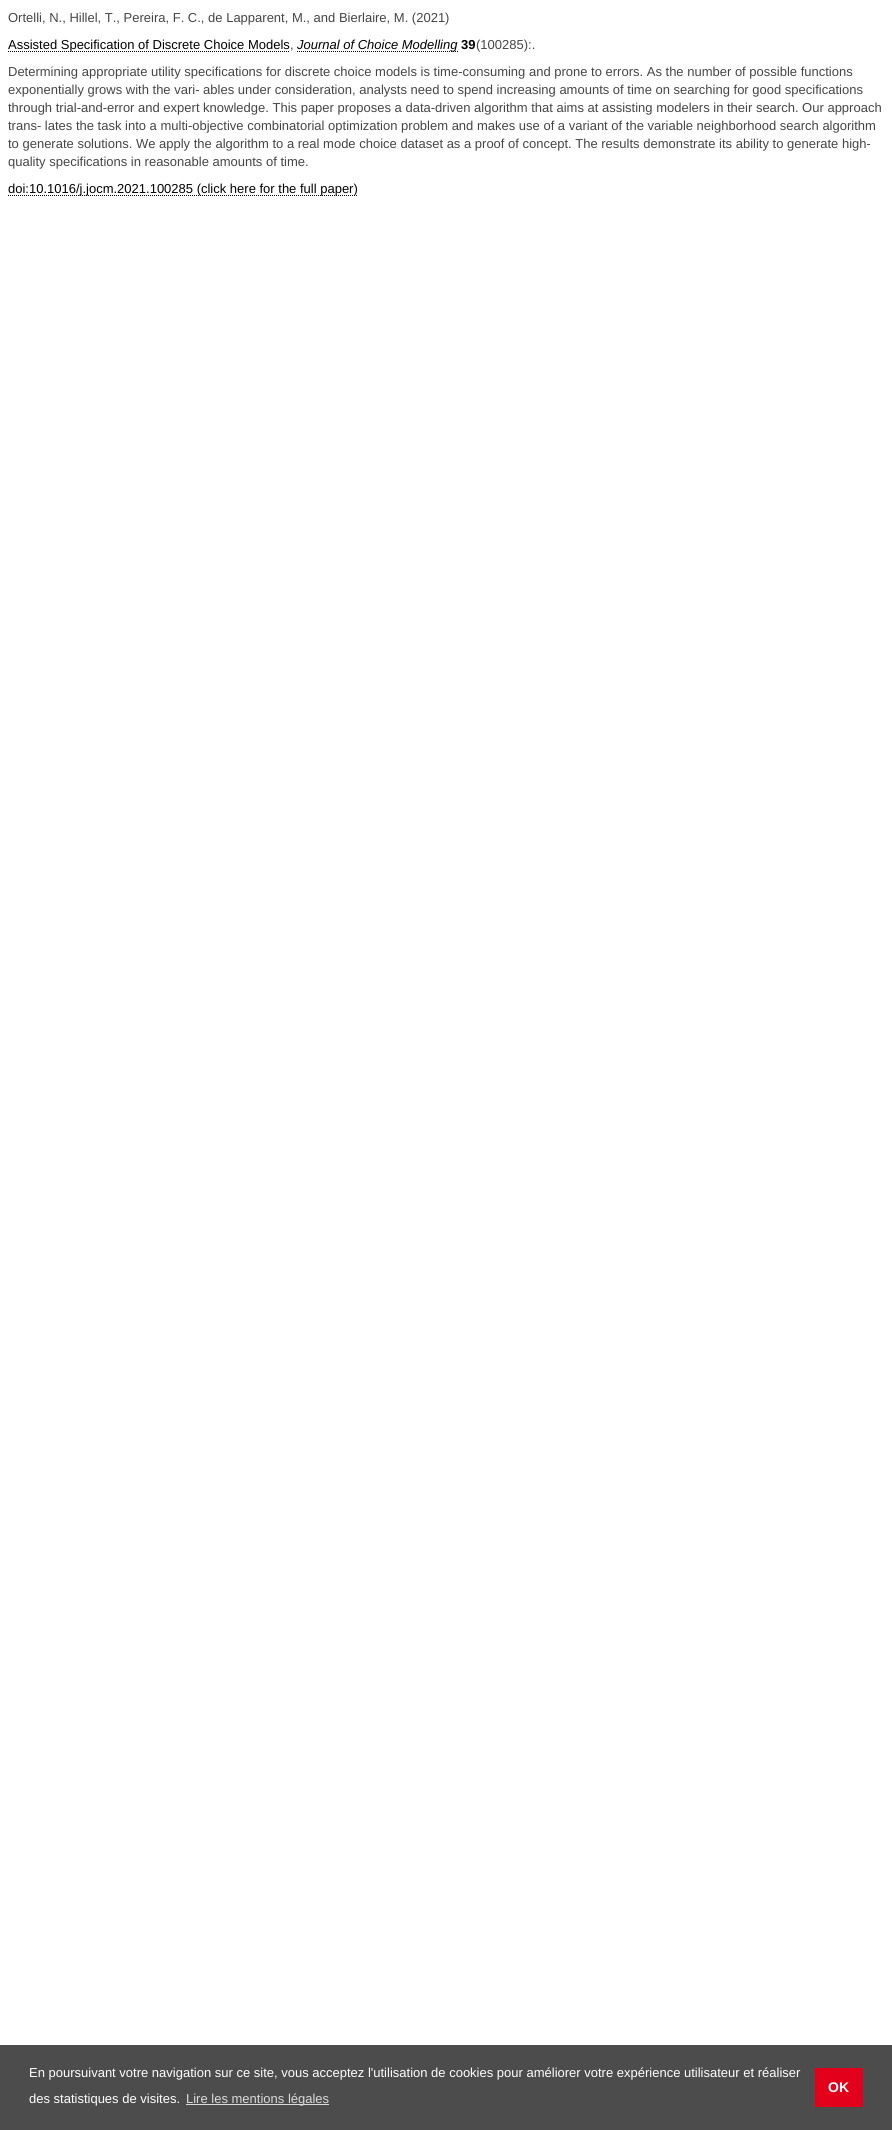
#include <cairo/cairo.h>
#include <math.h>
#include <stddef.h>

typedef struct { double x, y; const char *s; } line_t;
typedef struct { double x, y, w, h; unsigned color; } box_t;
static cairo_t *cr;

static void rgb(unsigned color)
{
	cairo_set_source_rgb(cr, (color >> 16) / 255.0, (color >> 8 & 255) / 255.0, (color & 255) / 255.0);
}

static void image(const char *path, double x, double y, double w, double h)
{
	cairo_surface_t *image = cairo_image_surface_create_from_png(path);
	cairo_save(cr);
	cairo_set_source_surface(cr, image, x, y);
	cairo_rectangle(cr, x, y, w, h);
	cairo_fill(cr);
	cairo_restore(cr);
	cairo_surface_destroy(image);
}

int main(void) {
	cairo_surface_t *surface = cairo_image_surface_create(CAIRO_FORMAT_RGB24, 892, 2130);
	cr = cairo_create(surface);
	cairo_font_options_t *options = cairo_font_options_create();
	cairo_font_options_set_hint_metrics(options, CAIRO_HINT_METRICS_OFF);
	cairo_font_options_set_hint_style(options, CAIRO_HINT_STYLE_NONE);
	cairo_set_font_options(cr, options);
	cairo_set_miter_limit(cr, 4);
	rgb(0xffffff);
	cairo_paint(cr);
	image("img/1.png", 8, 51, 281, 1);
	image("img/2.png", 297, 51, 161, 1);
	image("img/3.png", 8, 195, 349, 1);
	{
		static const box_t items[] = {
			{0, 2045, 892, 85, 0x4c4c4c},
			{186, 2104, 143, 1, 0xdbdbdb},
			{815, 2068, 48, 39, 0xe2001a},
		};
		for (size_t i = 0; i < sizeof items / sizeof *items; i++) {
			rgb(items[i].color);
			cairo_rectangle(cr, items[i].x, items[i].y, items[i].w, items[i].h);
			cairo_fill(cr);
		}
	}
	cairo_select_font_face(cr, "Liberation Sans", CAIRO_FONT_SLANT_NORMAL, CAIRO_FONT_WEIGHT_NORMAL);
	cairo_set_font_size(cr, 13);
	rgb(0x454545);
	cairo_move_to(cr, 8, 22);
	cairo_show_text(cr, "Ortelli, N., Hillel, T., Pereira, F. C., de Lapparent, M., and Bierlaire, M. (2021)");
	rgb(0x000000);
	cairo_move_to(cr, 8, 49);
	cairo_show_text(cr, "Assisted Specification of Discrete Choice Models");
	rgb(0x454545);
	cairo_move_to(cr, 290, 49);
	cairo_show_text(cr, ",");
	cairo_select_font_face(cr, "Liberation Sans", CAIRO_FONT_SLANT_ITALIC, CAIRO_FONT_WEIGHT_NORMAL);
	rgb(0x000000);
	cairo_move_to(cr, 297, 49);
	cairo_show_text(cr, "Journal of Choice Modelling");
	cairo_select_font_face(cr, "Liberation Sans", CAIRO_FONT_SLANT_NORMAL, CAIRO_FONT_WEIGHT_BOLD);
	cairo_move_to(cr, 461, 49);
	cairo_show_text(cr, "39");
	cairo_select_font_face(cr, "Liberation Sans", CAIRO_FONT_SLANT_NORMAL, CAIRO_FONT_WEIGHT_NORMAL);
	rgb(0x454545);
	{
		static const line_t items[] = {
			{476, 49, "(100285):."},
			{8, 76, "Determining appropriate utility specifications for discrete choice models is time-consuming and prone to errors. As the number of possible functions"},
			{8, 94, "exponentially grows with the vari- ables under consideration, analysts need to spend increasing amounts of time on searching for good specifications"},
			{8, 112, "through trial-and-error and expert knowledge. This paper proposes a data-driven algorithm that aims at assisting modelers in their search. Our approach"},
			{8, 130, "trans- lates the task into a multi-objective combinatorial optimization problem and makes use of a variant of the variable neighborhood search algorithm"},
			{8, 148, "to generate solutions. We apply the algorithm to a real mode choice dataset as a proof of concept. The results demonstrate its ability to generate high-"},
			{8, 166, "quality specifications in reasonable amounts of time."},
		};
		for (size_t i = 0; i < sizeof items / sizeof *items; i++) {
			cairo_move_to(cr, items[i].x, items[i].y);
			cairo_show_text(cr, items[i].s);
		}
	}
	rgb(0x000000);
	cairo_move_to(cr, 8, 193);
	cairo_show_text(cr, "doi:10.1016/j.jocm.2021.100285 (click here for the full paper)");
	rgb(0xffffff);
	cairo_move_to(cr, 29, 2077);
	cairo_show_text(cr, "En poursuivant votre navigation sur ce site, vous acceptez l'utilisation de cookies pour améliorer votre expérience utilisateur et réaliser");
	cairo_move_to(cr, 29, 2103);
	cairo_show_text(cr, "des statistiques de visites.");
	rgb(0xdbdbdb);
	cairo_move_to(cr, 186, 2103);
	cairo_show_text(cr, "Lire les mentions légales");
	cairo_select_font_face(cr, "Liberation Sans", CAIRO_FONT_SLANT_NORMAL, CAIRO_FONT_WEIGHT_BOLD);
	cairo_set_font_size(cr, 14);
	rgb(0xffffff);
	cairo_move_to(cr, 828, 2092);
	cairo_show_text(cr, "OK");
	cairo_surface_write_to_png(surface, "page.png");
	cairo_font_options_destroy(options);
	cairo_destroy(cr);
	cairo_surface_destroy(surface);
	return 0;
}
